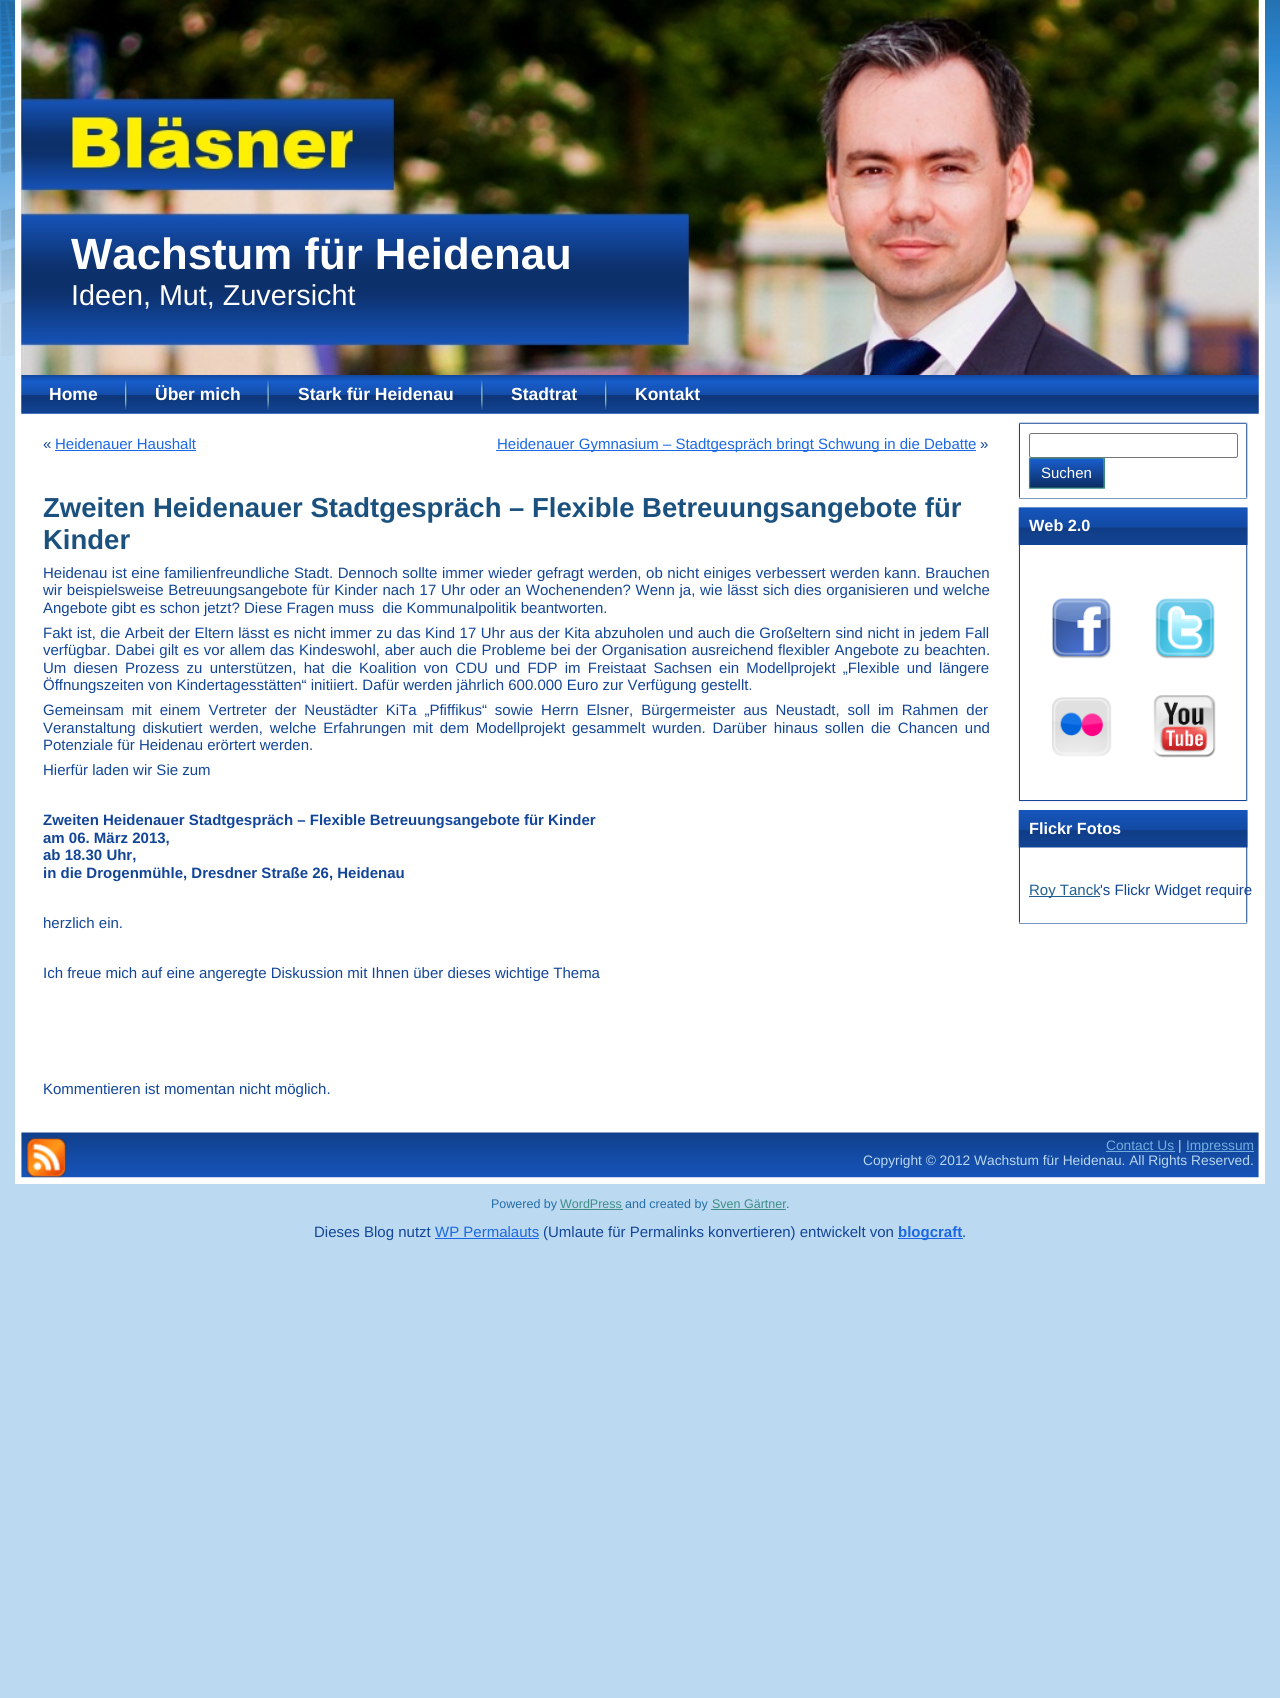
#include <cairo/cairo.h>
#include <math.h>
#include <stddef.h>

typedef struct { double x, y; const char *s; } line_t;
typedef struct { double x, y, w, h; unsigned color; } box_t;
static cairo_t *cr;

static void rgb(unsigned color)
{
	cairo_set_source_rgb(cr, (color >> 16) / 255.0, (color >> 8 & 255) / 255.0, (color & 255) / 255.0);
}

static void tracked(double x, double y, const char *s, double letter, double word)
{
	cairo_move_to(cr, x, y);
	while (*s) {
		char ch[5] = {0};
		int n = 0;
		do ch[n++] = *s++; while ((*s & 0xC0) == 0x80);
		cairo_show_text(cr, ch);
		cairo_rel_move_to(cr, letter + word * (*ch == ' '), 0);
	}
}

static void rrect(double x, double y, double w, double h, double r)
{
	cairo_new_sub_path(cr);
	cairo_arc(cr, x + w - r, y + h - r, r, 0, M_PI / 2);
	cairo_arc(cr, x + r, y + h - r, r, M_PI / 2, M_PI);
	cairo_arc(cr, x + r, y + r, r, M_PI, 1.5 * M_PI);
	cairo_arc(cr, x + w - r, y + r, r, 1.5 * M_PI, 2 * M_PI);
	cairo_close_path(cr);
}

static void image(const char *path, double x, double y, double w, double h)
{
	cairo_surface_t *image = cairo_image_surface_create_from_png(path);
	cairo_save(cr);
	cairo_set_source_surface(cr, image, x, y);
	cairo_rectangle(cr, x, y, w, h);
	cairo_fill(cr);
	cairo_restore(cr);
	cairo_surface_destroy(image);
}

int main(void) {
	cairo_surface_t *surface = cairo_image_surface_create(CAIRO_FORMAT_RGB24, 1280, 1698);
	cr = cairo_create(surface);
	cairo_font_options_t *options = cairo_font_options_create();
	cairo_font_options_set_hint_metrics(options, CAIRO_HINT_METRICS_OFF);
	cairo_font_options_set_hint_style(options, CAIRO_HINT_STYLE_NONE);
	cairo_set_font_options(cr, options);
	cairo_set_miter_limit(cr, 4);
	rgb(0xbbd9f1);
	cairo_paint(cr);
	image("img/1.png", 0, 0, 1280, 304);
	image("img/2.png", 1, 1, 14, 355);
	{
		static const box_t items[] = {
			{15, 0, 6, 1177, 0xffffff},
			{15, 1177, 7, 7, 0xffffff},
			{1258, 1177, 7, 7, 0xffffff},
			{21, 0, 1238, 1178, 0xffffff},
			{1259, 0, 6, 1177, 0xffffff},
		};
		for (size_t i = 0; i < sizeof items / sizeof *items; i++) {
			rgb(items[i].color);
			cairo_rectangle(cr, items[i].x, items[i].y, items[i].w, items[i].h);
			cairo_fill(cr);
		}
	}
	image("img/3.png", 21, 0, 1238, 375);
	image("img/4.png", 21, 375, 1238, 39);
	image("img/5.png", 21, 413, 104, 1);
	image("img/6.png", 125, 380, 3, 30);
	rgb(0x4471b9);
	cairo_rectangle(cr, 128, 413, 139, 1);
	cairo_fill(cr);
	image("img/7.png", 267, 380, 3, 30);
	cairo_rectangle(cr, 270, 413, 211, 1);
	cairo_fill(cr);
	image("img/8.png", 481, 380, 3, 30);
	cairo_rectangle(cr, 484, 413, 121, 1);
	cairo_fill(cr);
	image("img/6.png", 605, 380, 3, 30);
	{
		static const box_t items[] = {
			{608, 413, 119, 1, 0x4471b9},
			{55, 450, 141, 1, 0x1b68e4},
			{496, 450, 480, 1, 0x1b68e4},
		};
		for (size_t i = 0; i < sizeof items / sizeof *items; i++) {
			rgb(items[i].color);
			cairo_rectangle(cr, items[i].x, items[i].y, items[i].w, items[i].h);
			cairo_fill(cr);
		}
	}
	image("img/9.png", 1018, 422, 2, 2);
	image("img/12.png", 1246, 422, 2, 2);
	image("img/10.png", 1020, 422, 227, 2);
	image("img/16.png", 1018, 497, 2, 2);
	image("img/11.png", 1018, 423, 2, 75);
	rrect(1029.5, 433.5, 208, 24, 2);
	rgb(0x767676);
	cairo_set_line_width(cr, 1);
	cairo_stroke(cr);
	image("img/13.png", 1028, 457, 76, 32);
	image("img/14.png", 1103, 457, 2, 32);
	image("img/18.png", 1246, 497, 2, 2);
	image("img/17.png", 1020, 497, 227, 2);
	image("img/15.png", 1246, 423, 2, 75);
	rgb(0xffffff);
	cairo_rectangle(cr, 1020, 497, 226, 1);
	cairo_fill(cr);
	image("img/9.png", 1018, 507, 2, 2);
	image("img/19.png", 1020, 507, 226, 1);
	image("img/12.png", 1246, 507, 2, 2);
	image("img/20.png", 1018, 509, 2, 291);
	image("img/26.png", 1246, 509, 2, 291);
	image("img/21.png", 1018, 507, 230, 38);
	image("img/22.png", 1051, 598, 60, 61);
	image("img/23.png", 1155, 598, 60, 61);
	image("img/24.png", 1052, 697, 60, 60);
	image("img/25.png", 1153, 695, 63, 63);
	image("img/27.png", 1018, 800, 2, 2);
	image("img/29.png", 1246, 800, 2, 2);
	image("img/28.png", 1020, 800, 227, 2);
	image("img/30.png", 1018, 810, 1, 1);
	image("img/31.png", 1247, 810, 1, 2);
	image("img/16.png", 1018, 922, 2, 2);
	image("img/32.png", 1018, 811, 2, 112);
	image("img/18.png", 1246, 922, 2, 2);
	image("img/17.png", 1020, 922, 227, 2);
	image("img/33.png", 1246, 811, 2, 112);
	image("img/34.png", 1018, 810, 230, 38);
	rgb(0x1f5f93);
	cairo_rectangle(cr, 1029, 896, 71, 1);
	cairo_fill(cr);
	rgb(0xffffff);
	cairo_rectangle(cr, 1020, 922, 226, 1);
	cairo_fill(cr);
	image("img/35.png", 21, 1132, 1238, 46);
	image("img/36.png", 26, 1137, 41, 41);
	{
		static const box_t items[] = {
			{1106, 1151, 69, 1, 0x70aee1},
			{1186, 1151, 68, 1, 0x70aee1},
			{22, 1178, 1236, 6, 0xffffff},
			{560, 1209, 63, 1, 0x3f8d84},
			{711, 1209, 75, 1, 0x3f8d84},
			{435, 1238, 104, 1, 0x1b68e4},
			{898, 1238, 65, 1, 0x1b68e4},
		};
		for (size_t i = 0; i < sizeof items / sizeof *items; i++) {
			rgb(items[i].color);
			cairo_rectangle(cr, items[i].x, items[i].y, items[i].w, items[i].h);
			cairo_fill(cr);
		}
	}
	cairo_select_font_face(cr, "Liberation Sans", CAIRO_FONT_SLANT_NORMAL, CAIRO_FONT_WEIGHT_BOLD);
	cairo_set_font_size(cr, 43.75);
	rgb(0xffffff);
	cairo_move_to(cr, 71, 269);
	cairo_show_text(cr, "Wachstum für Heidenau");
	cairo_select_font_face(cr, "Liberation Sans", CAIRO_FONT_SLANT_NORMAL, CAIRO_FONT_WEIGHT_NORMAL);
	cairo_set_font_size(cr, 28.75);
	cairo_move_to(cr, 71, 305);
	cairo_show_text(cr, "Ideen, Mut, Zuversicht");
	cairo_select_font_face(cr, "Liberation Sans", CAIRO_FONT_SLANT_NORMAL, CAIRO_FONT_WEIGHT_BOLD);
	cairo_set_font_size(cr, 17.5);
	{
		static const line_t items[] = {
			{49, 400, "Home"},
			{155, 400, "Über mich"},
			{298, 400, "Stark für Heidenau"},
			{511, 400, "Stadtrat"},
			{635, 400, "Kontakt"},
		};
		for (size_t i = 0; i < sizeof items / sizeof *items; i++) {
			cairo_move_to(cr, items[i].x, items[i].y);
			cairo_show_text(cr, items[i].s);
		}
	}
	cairo_select_font_face(cr, "Liberation Sans", CAIRO_FONT_SLANT_NORMAL, CAIRO_FONT_WEIGHT_NORMAL);
	cairo_set_font_size(cr, 15);
	rgb(0x124597);
	cairo_move_to(cr, 43, 449);
	cairo_show_text(cr, "«");
	rgb(0x1b68e4);
	cairo_move_to(cr, 55, 449);
	cairo_show_text(cr, "Heidenauer Haushalt");
	cairo_move_to(cr, 497, 449);
	cairo_show_text(cr, "Heidenauer Gymnasium – Stadtgespräch bringt Schwung in die Debatte");
	rgb(0x124597);
	cairo_move_to(cr, 980, 449);
	cairo_show_text(cr, "»");
	cairo_select_font_face(cr, "Liberation Sans", CAIRO_FONT_SLANT_NORMAL, CAIRO_FONT_WEIGHT_BOLD);
	cairo_set_font_size(cr, 27.5);
	rgb(0x1b517e);
	cairo_move_to(cr, 43, 517);
	cairo_show_text(cr, "Zweiten Heidenauer Stadtgespräch – Flexible Betreuungsangebote für");
	cairo_move_to(cr, 43, 549);
	cairo_show_text(cr, "Kinder");
	cairo_select_font_face(cr, "Liberation Sans", CAIRO_FONT_SLANT_NORMAL, CAIRO_FONT_WEIGHT_NORMAL);
	cairo_set_font_size(cr, 15);
	rgb(0x124597);
	tracked(43, 578, "Heidenau ist eine familienfreundliche Stadt. Dennoch sollte immer wieder gefragt werden, ob nicht einiges verbessert werden kann. Brauchen", 0, 0.4);
	tracked(43, 595, "wir beispielsweise Betreuungsangebote für Kinder nach 17 Uhr oder an Wochenenden? Wenn ja, wie lässt sich dies organisieren und welche", 0, 0.5);
	cairo_move_to(cr, 43, 613);
	cairo_show_text(cr, "Angebote gibt es schon jetzt? Diese Fragen muss  die Kommunalpolitik beantworten.");
	tracked(43, 638, "Fakt ist, die Arbeit der Eltern lässt es nicht immer zu das Kind 17 Uhr aus der Kita abzuholen und auch die Großeltern sind nicht in jedem Fall", 0, 0.3);
	tracked(43, 655, "verfügbar. Dabei gilt es vor allem das Kindeswohl, aber auch die Probleme bei der Organisation ausreichend flexibler Angebote zu beachten.", 0, 0.6);
	tracked(43, 673, "Um diesen Prozess zu unterstützen, hat die Koalition von CDU und FDP im Freistaat Sachsen ein Modellprojekt „Flexible und längere", 0, 3.1);
	cairo_move_to(cr, 43, 690);
	cairo_show_text(cr, "Öffnungszeiten von Kindertagesstätten“ initiiert. Dafür werden jährlich 600.000 Euro zur Verfügung gestellt.");
	tracked(43, 715, "Gemeinsam mit einem Vertreter der Neustädter KiTa „Pfiffikus“ sowie Herrn Elsner, Bürgermeister aus Neustadt, soll im Rahmen der", 0, 3.75);
	tracked(43, 733, "Veranstaltung diskutiert werden, welche Erfahrungen mit dem Modellprojekt gesammelt wurden. Darüber hinaus sollen die Chancen und", 0, 2.75);
	cairo_move_to(cr, 43, 750);
	cairo_show_text(cr, "Potenziale für Heidenau erörtert werden.");
	cairo_move_to(cr, 43, 775);
	cairo_show_text(cr, "Hierfür laden wir Sie zum");
	cairo_select_font_face(cr, "Liberation Sans", CAIRO_FONT_SLANT_NORMAL, CAIRO_FONT_WEIGHT_BOLD);
	{
		static const line_t items[] = {
			{43, 825, "Zweiten Heidenauer Stadtgespräch – Flexible Betreuungsangebote für Kinder"},
			{43, 843, "am 06. März 2013,"},
			{43, 860, "ab 18.30 Uhr,"},
			{43, 878, "in die Drogenmühle, Dresdner Straße 26, Heidenau"},
		};
		for (size_t i = 0; i < sizeof items / sizeof *items; i++) {
			cairo_move_to(cr, items[i].x, items[i].y);
			cairo_show_text(cr, items[i].s);
		}
	}
	cairo_select_font_face(cr, "Liberation Sans", CAIRO_FONT_SLANT_NORMAL, CAIRO_FONT_WEIGHT_NORMAL);
	{
		static const line_t items[] = {
			{43, 928, "herzlich ein."},
			{43, 978, "Ich freue mich auf eine angeregte Diskussion mit Ihnen über dieses wichtige Thema"},
			{43, 1094, "Kommentieren ist momentan nicht möglich."},
		};
		for (size_t i = 0; i < sizeof items / sizeof *items; i++) {
			cairo_move_to(cr, items[i].x, items[i].y);
			cairo_show_text(cr, items[i].s);
		}
	}
	rgb(0xffffff);
	cairo_move_to(cr, 1041, 478);
	cairo_show_text(cr, "Suchen");
	cairo_select_font_face(cr, "Liberation Sans", CAIRO_FONT_SLANT_NORMAL, CAIRO_FONT_WEIGHT_BOLD);
	cairo_set_font_size(cr, 16.25);
	cairo_move_to(cr, 1029, 531);
	cairo_show_text(cr, "Web 2.0");
	cairo_move_to(cr, 1029, 834);
	cairo_show_text(cr, "Flickr Fotos");
	cairo_select_font_face(cr, "Liberation Sans", CAIRO_FONT_SLANT_NORMAL, CAIRO_FONT_WEIGHT_NORMAL);
	cairo_set_font_size(cr, 15);
	rgb(0x1f5f93);
	cairo_move_to(cr, 1029, 895);
	cairo_show_text(cr, "Roy Tanck");
	rgb(0x124597);
	cairo_move_to(cr, 1100, 895);
	cairo_show_text(cr, "'s Flickr Widget require");
	cairo_set_font_size(cr, 13.75);
	rgb(0x70aee1);
	cairo_move_to(cr, 1106, 1150);
	cairo_show_text(cr, "Contact Us");
	rgb(0xb7d6f0);
	cairo_move_to(cr, 1178, 1150);
	cairo_show_text(cr, "|");
	rgb(0x70aee1);
	cairo_move_to(cr, 1186, 1150);
	cairo_show_text(cr, "Impressum");
	rgb(0xb7d6f0);
	cairo_move_to(cr, 863, 1165);
	cairo_show_text(cr, "Copyright © 2012 Wachstum für Heidenau. All Rights Reserved.");
	cairo_set_font_size(cr, 12.5);
	rgb(0x246da8);
	cairo_move_to(cr, 491, 1208);
	cairo_show_text(cr, "Powered by");
	rgb(0x3f8d84);
	cairo_move_to(cr, 560, 1208);
	cairo_show_text(cr, "WordPress");
	rgb(0x246da8);
	cairo_move_to(cr, 625, 1208);
	cairo_show_text(cr, "and created by");
	rgb(0x3f8d84);
	cairo_move_to(cr, 712, 1208);
	cairo_show_text(cr, "Sven Gärtner");
	rgb(0x246da8);
	cairo_move_to(cr, 786, 1208);
	cairo_show_text(cr, ".");
	cairo_set_font_size(cr, 15);
	rgb(0x124597);
	cairo_move_to(cr, 314, 1237);
	cairo_show_text(cr, "Dieses Blog nutzt");
	rgb(0x1b68e4);
	cairo_move_to(cr, 435, 1237);
	cairo_show_text(cr, "WP Permalauts");
	rgb(0x124597);
	cairo_move_to(cr, 543, 1237);
	cairo_show_text(cr, "(Umlaute für Permalinks konvertieren) entwickelt von");
	cairo_select_font_face(cr, "Liberation Sans", CAIRO_FONT_SLANT_NORMAL, CAIRO_FONT_WEIGHT_BOLD);
	rgb(0x1b68e4);
	cairo_move_to(cr, 898, 1237);
	cairo_show_text(cr, "blogcraft");
	cairo_select_font_face(cr, "Liberation Sans", CAIRO_FONT_SLANT_NORMAL, CAIRO_FONT_WEIGHT_NORMAL);
	rgb(0x124597);
	cairo_move_to(cr, 962, 1237);
	cairo_show_text(cr, ".");
	cairo_surface_write_to_png(surface, "page.png");
	cairo_font_options_destroy(options);
	cairo_destroy(cr);
	cairo_surface_destroy(surface);
	return 0;
}
